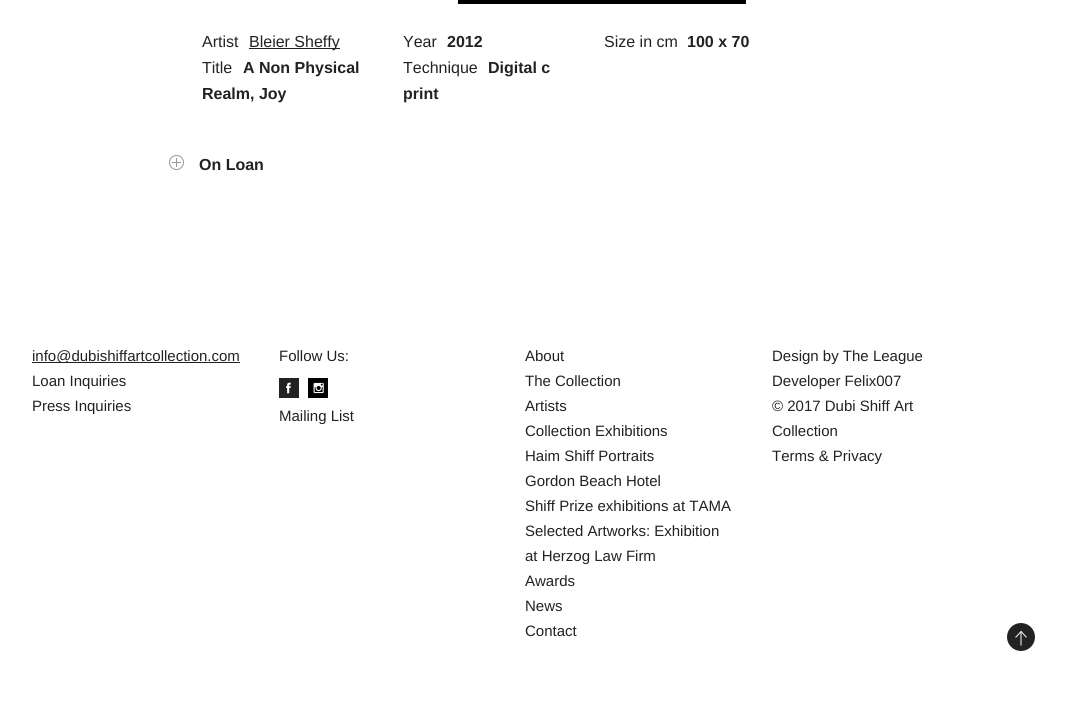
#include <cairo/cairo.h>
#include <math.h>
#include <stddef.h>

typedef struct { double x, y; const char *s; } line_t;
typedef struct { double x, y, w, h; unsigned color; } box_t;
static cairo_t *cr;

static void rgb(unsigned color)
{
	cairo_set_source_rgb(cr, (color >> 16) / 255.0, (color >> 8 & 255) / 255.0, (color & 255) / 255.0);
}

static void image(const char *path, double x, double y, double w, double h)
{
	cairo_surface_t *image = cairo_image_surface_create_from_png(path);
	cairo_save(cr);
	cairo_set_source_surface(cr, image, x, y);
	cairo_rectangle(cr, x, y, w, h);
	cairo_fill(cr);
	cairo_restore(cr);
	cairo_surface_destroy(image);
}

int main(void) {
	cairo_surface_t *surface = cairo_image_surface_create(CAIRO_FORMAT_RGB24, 1065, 701);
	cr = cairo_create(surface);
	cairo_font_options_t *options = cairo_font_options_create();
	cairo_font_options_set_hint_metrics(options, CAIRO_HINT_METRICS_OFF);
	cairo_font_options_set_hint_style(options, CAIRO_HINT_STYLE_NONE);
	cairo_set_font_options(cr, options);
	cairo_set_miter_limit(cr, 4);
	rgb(0xffffff);
	cairo_paint(cr);
	rgb(0x010001);
	cairo_rectangle(cr, 458, 0, 288, 4);
	cairo_fill(cr);
	rgb(0x222222);
	cairo_rectangle(cr, 249, 48, 91, 1);
	cairo_fill(cr);
	cairo_arc(cr, 176.5, 162.5, 7, 0, 2 * M_PI);
	rgb(0x979797);
	cairo_set_line_width(cr, 1);
	cairo_stroke(cr);
	{
		static const box_t items[] = {
			{172, 162, 9, 1, 0x979797},
			{176, 158, 1, 9, 0x979797},
			{32, 362, 208, 1, 0x222222},
		};
		for (size_t i = 0; i < sizeof items / sizeof *items; i++) {
			rgb(items[i].color);
			cairo_rectangle(cr, items[i].x, items[i].y, items[i].w, items[i].h);
			cairo_fill(cr);
		}
	}
	image("img/1.png", 279, 378, 20, 20);
	image("img/2.png", 308, 378, 20, 20);
	image("img/3.png", 1007, 623, 28, 28);
	cairo_select_font_face(cr, "Liberation Sans", CAIRO_FONT_SLANT_NORMAL, CAIRO_FONT_WEIGHT_NORMAL);
	cairo_set_font_size(cr, 16);
	{
		static const line_t items[] = {
			{202, 47, "Artist"},
			{249, 47, "Bleier Sheffy"},
			{202, 73, "Title"},
		};
		for (size_t i = 0; i < sizeof items / sizeof *items; i++) {
			cairo_move_to(cr, items[i].x, items[i].y);
			cairo_show_text(cr, items[i].s);
		}
	}
	cairo_select_font_face(cr, "Liberation Sans", CAIRO_FONT_SLANT_NORMAL, CAIRO_FONT_WEIGHT_BOLD);
	cairo_move_to(cr, 243, 73);
	cairo_show_text(cr, "A Non Physical");
	cairo_move_to(cr, 202, 99);
	cairo_show_text(cr, "Realm, Joy");
	cairo_select_font_face(cr, "Liberation Sans", CAIRO_FONT_SLANT_NORMAL, CAIRO_FONT_WEIGHT_NORMAL);
	cairo_move_to(cr, 403, 47);
	cairo_show_text(cr, "Year");
	cairo_select_font_face(cr, "Liberation Sans", CAIRO_FONT_SLANT_NORMAL, CAIRO_FONT_WEIGHT_BOLD);
	cairo_move_to(cr, 447, 47);
	cairo_show_text(cr, "2012");
	cairo_select_font_face(cr, "Liberation Sans", CAIRO_FONT_SLANT_NORMAL, CAIRO_FONT_WEIGHT_NORMAL);
	cairo_move_to(cr, 403, 73);
	cairo_show_text(cr, "Technique");
	cairo_select_font_face(cr, "Liberation Sans", CAIRO_FONT_SLANT_NORMAL, CAIRO_FONT_WEIGHT_BOLD);
	cairo_move_to(cr, 488, 73);
	cairo_show_text(cr, "Digital c");
	cairo_move_to(cr, 403, 99);
	cairo_show_text(cr, "print");
	cairo_select_font_face(cr, "Liberation Sans", CAIRO_FONT_SLANT_NORMAL, CAIRO_FONT_WEIGHT_NORMAL);
	cairo_move_to(cr, 604, 47);
	cairo_show_text(cr, "Size in cm");
	cairo_select_font_face(cr, "Liberation Sans", CAIRO_FONT_SLANT_NORMAL, CAIRO_FONT_WEIGHT_BOLD);
	cairo_move_to(cr, 687, 47);
	cairo_show_text(cr, "100 x 70");
	cairo_move_to(cr, 199, 170);
	cairo_show_text(cr, "On Loan");
	cairo_select_font_face(cr, "Liberation Sans", CAIRO_FONT_SLANT_NORMAL, CAIRO_FONT_WEIGHT_NORMAL);
	cairo_set_font_size(cr, 15);
	{
		static const line_t items[] = {
			{32, 361, "info@dubishiffartcollection.com"},
			{32, 386, "Loan Inquiries"},
			{32, 411, "Press Inquiries"},
			{279, 361, "Follow Us:"},
			{279, 421, "Mailing List"},
			{525, 361, "About"},
			{525, 386, "The Collection"},
			{525, 411, "Artists"},
			{525, 436, "Collection Exhibitions"},
			{525, 461, "Haim Shiff Portraits"},
			{525, 486, "Gordon Beach Hotel"},
			{525, 511, "Shiff Prize exhibitions at TAMA"},
			{525, 536, "Selected Artworks: Exhibition"},
			{525, 561, "at Herzog Law Firm"},
			{525, 586, "Awards"},
			{525, 611, "News"},
			{525, 636, "Contact"},
			{772, 361, "Design by The League"},
			{772, 386, "Developer Felix007"},
			{772, 411, "© 2017 Dubi Shiff Art"},
			{772, 436, "Collection"},
			{772, 461, "Terms & Privacy"},
		};
		for (size_t i = 0; i < sizeof items / sizeof *items; i++) {
			cairo_move_to(cr, items[i].x, items[i].y);
			cairo_show_text(cr, items[i].s);
		}
	}
	cairo_surface_write_to_png(surface, "page.png");
	cairo_font_options_destroy(options);
	cairo_destroy(cr);
	cairo_surface_destroy(surface);
	return 0;
}
